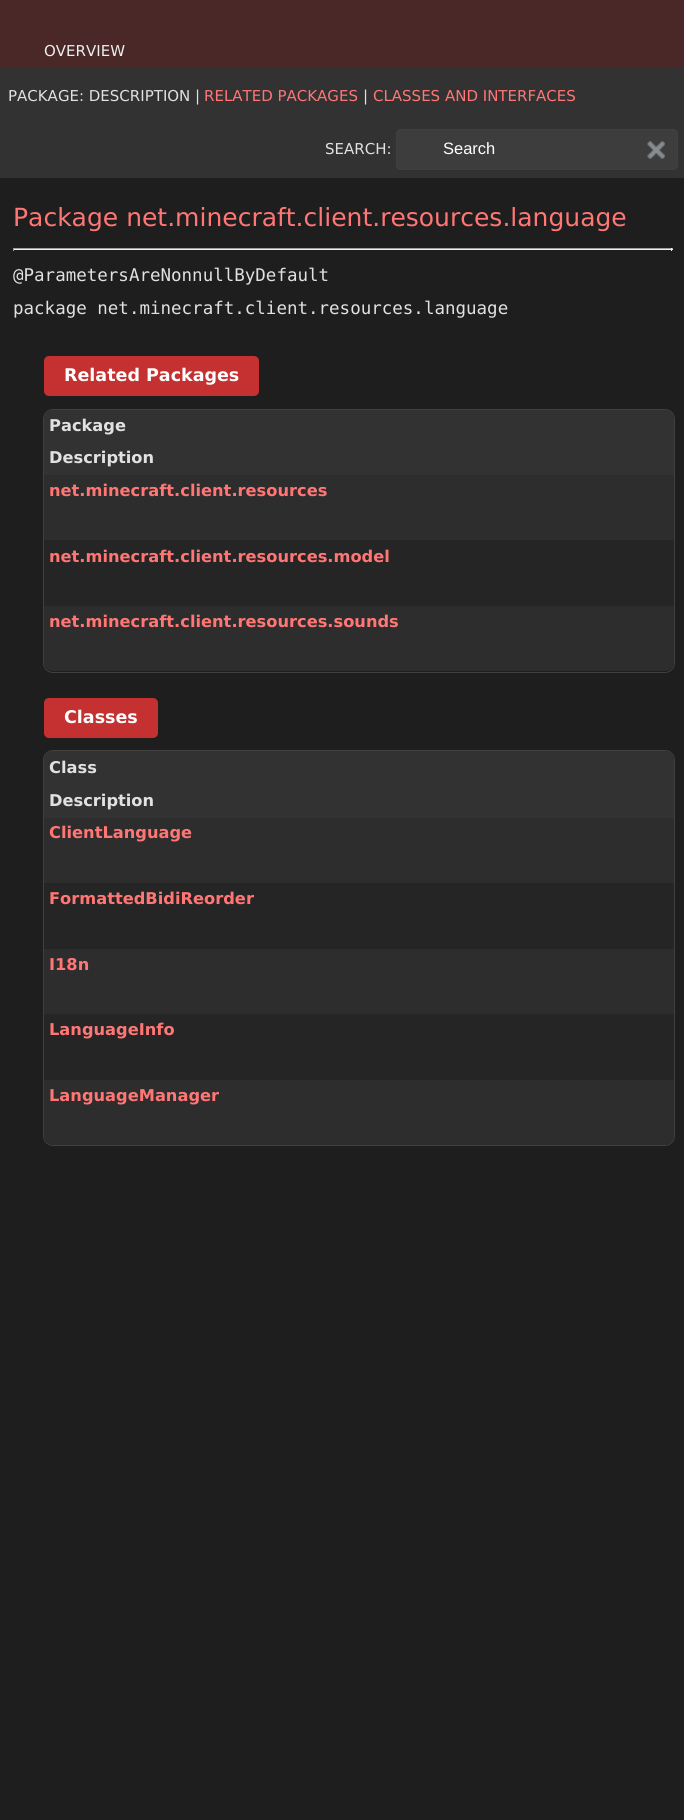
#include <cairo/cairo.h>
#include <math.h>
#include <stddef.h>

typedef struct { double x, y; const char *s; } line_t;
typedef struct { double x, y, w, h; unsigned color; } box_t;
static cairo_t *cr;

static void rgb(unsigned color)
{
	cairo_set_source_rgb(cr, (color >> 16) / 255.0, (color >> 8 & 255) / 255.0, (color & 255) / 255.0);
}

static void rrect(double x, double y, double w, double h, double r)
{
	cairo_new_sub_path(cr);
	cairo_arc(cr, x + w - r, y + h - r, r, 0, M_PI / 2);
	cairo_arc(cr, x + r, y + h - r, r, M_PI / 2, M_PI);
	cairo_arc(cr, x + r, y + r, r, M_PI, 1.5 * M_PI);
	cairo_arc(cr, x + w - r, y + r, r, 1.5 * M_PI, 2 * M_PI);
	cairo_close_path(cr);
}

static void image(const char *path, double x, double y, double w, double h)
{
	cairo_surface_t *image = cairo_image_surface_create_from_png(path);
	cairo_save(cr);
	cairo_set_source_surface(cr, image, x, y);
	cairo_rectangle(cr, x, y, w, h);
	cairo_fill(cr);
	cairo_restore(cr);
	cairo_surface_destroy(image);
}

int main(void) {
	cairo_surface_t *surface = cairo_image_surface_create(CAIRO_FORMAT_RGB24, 684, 1820);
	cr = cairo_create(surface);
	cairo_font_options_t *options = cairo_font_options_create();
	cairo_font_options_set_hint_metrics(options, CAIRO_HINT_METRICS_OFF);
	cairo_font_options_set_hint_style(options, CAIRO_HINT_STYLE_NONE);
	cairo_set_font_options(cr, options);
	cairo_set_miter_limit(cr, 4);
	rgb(0x1e1e1e);
	cairo_paint(cr);
	rgb(0x4a2828);
	cairo_rectangle(cr, 0, 0, 684, 68);
	cairo_fill(cr);
	rgb(0x323233);
	cairo_rectangle(cr, 0, 68, 684, 110);
	cairo_fill(cr);
	rgb(0x3d3d3d);
	rrect(396.5, 129.5, 281, 40, 4.5);
	cairo_fill_preserve(cr);
	rgb(0x404040);
	cairo_set_line_width(cr, 1);
	cairo_stroke(cr);
	image("img/1.png", 647, 141, 18, 18);
	{
		static const box_t items[] = {
			{13, 248, 660, 1, 0x9f9f9f},
			{671, 248, 1, 3, 0xeeeeee},
			{13, 249, 660, 1, 0xeeeeee},
			{13, 248, 1, 3, 0x9f9f9f},
		};
		for (size_t i = 0; i < sizeof items / sizeof *items; i++) {
			rgb(items[i].color);
			cairo_rectangle(cr, items[i].x, items[i].y, items[i].w, items[i].h);
			cairo_fill(cr);
		}
	}
	rgb(0xc53030);
	rrect(44, 356, 215, 40, 5);
	cairo_fill(cr);
	rrect(43.5, 409.5, 631, 263, 9.5);
	rgb(0x404040);
	cairo_stroke(cr);
	rgb(0x323233);
	cairo_new_path(cr);
	cairo_move_to(cr, 53, 410);
	cairo_line_to(cr, 665, 410);
	cairo_curve_to(cr, 670, 410, 674, 414, 674, 419);
	cairo_line_to(cr, 674, 443);
	cairo_line_to(cr, 44, 443);
	cairo_line_to(cr, 44, 419);
	cairo_curve_to(cr, 44, 414, 48, 410, 53, 410);
	cairo_close_path(cr);
	cairo_fill(cr);
	{
		static const box_t items[] = {
			{44, 443, 630, 32, 0x323233},
			{44, 475, 630, 65, 0x2d2d2d},
			{44, 540, 630, 66, 0x252526},
			{44, 606, 630, 33, 0x2d2d2d},
		};
		for (size_t i = 0; i < sizeof items / sizeof *items; i++) {
			rgb(items[i].color);
			cairo_rectangle(cr, items[i].x, items[i].y, items[i].w, items[i].h);
			cairo_fill(cr);
		}
	}
	cairo_new_path(cr);
	cairo_move_to(cr, 44, 639);
	cairo_line_to(cr, 674, 639);
	cairo_line_to(cr, 674, 662);
	cairo_curve_to(cr, 674, 667, 670, 671, 665, 671);
	cairo_line_to(cr, 53, 671);
	cairo_curve_to(cr, 48, 671, 44, 667, 44, 662);
	cairo_close_path(cr);
	cairo_fill(cr);
	rgb(0xc53030);
	rrect(44, 698, 114, 40, 5);
	cairo_fill(cr);
	rrect(43.5, 750.5, 631, 395, 9.5);
	rgb(0x404040);
	cairo_stroke(cr);
	rgb(0x323233);
	cairo_new_path(cr);
	cairo_move_to(cr, 53, 751);
	cairo_line_to(cr, 665, 751);
	cairo_curve_to(cr, 670, 751, 674, 755, 674, 760);
	cairo_line_to(cr, 674, 785);
	cairo_line_to(cr, 44, 785);
	cairo_line_to(cr, 44, 760);
	cairo_curve_to(cr, 44, 755, 48, 751, 53, 751);
	cairo_close_path(cr);
	cairo_fill(cr);
	{
		static const box_t items[] = {
			{44, 785, 630, 33, 0x323233},
			{44, 818, 630, 65, 0x2d2d2d},
			{44, 883, 630, 66, 0x252526},
			{44, 949, 630, 65, 0x2d2d2d},
			{44, 1014, 630, 66, 0x252526},
			{44, 1080, 630, 33, 0x2d2d2d},
		};
		for (size_t i = 0; i < sizeof items / sizeof *items; i++) {
			rgb(items[i].color);
			cairo_rectangle(cr, items[i].x, items[i].y, items[i].w, items[i].h);
			cairo_fill(cr);
		}
	}
	cairo_new_path(cr);
	cairo_move_to(cr, 44, 1113);
	cairo_line_to(cr, 674, 1113);
	cairo_line_to(cr, 674, 1136);
	cairo_curve_to(cr, 674, 1141, 670, 1145, 665, 1145);
	cairo_line_to(cr, 53, 1145);
	cairo_curve_to(cr, 48, 1145, 44, 1141, 44, 1136);
	cairo_close_path(cr);
	cairo_fill(cr);
	cairo_select_font_face(cr, "DejaVu Sans", CAIRO_FONT_SLANT_NORMAL, CAIRO_FONT_WEIGHT_NORMAL);
	cairo_set_font_size(cr, 15);
	rgb(0xecf0f1);
	cairo_move_to(cr, 44, 56);
	cairo_show_text(cr, "OVERVIEW");
	rgb(0xe1e1e1);
	cairo_move_to(cr, 8, 101);
	cairo_show_text(cr, "PACKAGE: DESCRIPTION |");
	rgb(0xff7675);
	cairo_move_to(cr, 204, 101);
	cairo_show_text(cr, "RELATED PACKAGES");
	rgb(0xe1e1e1);
	cairo_move_to(cr, 363, 101);
	cairo_show_text(cr, "|");
	rgb(0xff7675);
	cairo_move_to(cr, 373, 101);
	cairo_show_text(cr, "CLASSES AND INTERFACES");
	rgb(0xe1e1e1);
	cairo_move_to(cr, 325, 154);
	cairo_show_text(cr, "SEARCH:");
	cairo_select_font_face(cr, "Liberation Sans", CAIRO_FONT_SLANT_NORMAL, CAIRO_FONT_WEIGHT_NORMAL);
	cairo_set_font_size(cr, 16.5);
	rgb(0xffffff);
	cairo_move_to(cr, 443, 154);
	cairo_show_text(cr, "Search");
	cairo_select_font_face(cr, "DejaVu Sans", CAIRO_FONT_SLANT_NORMAL, CAIRO_FONT_WEIGHT_NORMAL);
	cairo_set_font_size(cr, 25);
	rgb(0xff7675);
	cairo_move_to(cr, 13, 226);
	cairo_show_text(cr, "Package net.minecraft.client.resources.language");
	cairo_select_font_face(cr, "DejaVu Sans Mono", CAIRO_FONT_SLANT_NORMAL, CAIRO_FONT_WEIGHT_NORMAL);
	cairo_set_font_size(cr, 17.5);
	rgb(0xe1e1e1);
	cairo_move_to(cr, 13, 281);
	cairo_show_text(cr, "@ParametersAreNonnullByDefault");
	cairo_move_to(cr, 13, 314);
	cairo_show_text(cr, "package net.minecraft.client.resources.language");
	cairo_select_font_face(cr, "DejaVu Sans", CAIRO_FONT_SLANT_NORMAL, CAIRO_FONT_WEIGHT_BOLD);
	rgb(0xffffff);
	cairo_move_to(cr, 64, 381);
	cairo_show_text(cr, "Related Packages");
	cairo_set_font_size(cr, 16.25);
	rgb(0xe1e1e1);
	cairo_move_to(cr, 49, 431);
	cairo_show_text(cr, "Package");
	cairo_move_to(cr, 49, 463);
	cairo_show_text(cr, "Description");
	rgb(0xff7675);
	{
		static const line_t items[] = {
			{49, 496, "net.minecraft.client.resources"},
			{49, 562, "net.minecraft.client.resources.model"},
			{49, 627, "net.minecraft.client.resources.sounds"},
		};
		for (size_t i = 0; i < sizeof items / sizeof *items; i++) {
			cairo_move_to(cr, items[i].x, items[i].y);
			cairo_show_text(cr, items[i].s);
		}
	}
	cairo_set_font_size(cr, 17.5);
	rgb(0xffffff);
	cairo_move_to(cr, 64, 723);
	cairo_show_text(cr, "Classes");
	cairo_set_font_size(cr, 16.25);
	rgb(0xe1e1e1);
	cairo_move_to(cr, 49, 773);
	cairo_show_text(cr, "Class");
	cairo_move_to(cr, 49, 806);
	cairo_show_text(cr, "Description");
	rgb(0xff7675);
	{
		static const line_t items[] = {
			{49, 838, "ClientLanguage"},
			{49, 904, "FormattedBidiReorder"},
			{49, 970, "I18n"},
			{49, 1035, "LanguageInfo"},
			{49, 1101, "LanguageManager"},
		};
		for (size_t i = 0; i < sizeof items / sizeof *items; i++) {
			cairo_move_to(cr, items[i].x, items[i].y);
			cairo_show_text(cr, items[i].s);
		}
	}
	cairo_surface_write_to_png(surface, "page.png");
	cairo_font_options_destroy(options);
	cairo_destroy(cr);
	cairo_surface_destroy(surface);
	return 0;
}
